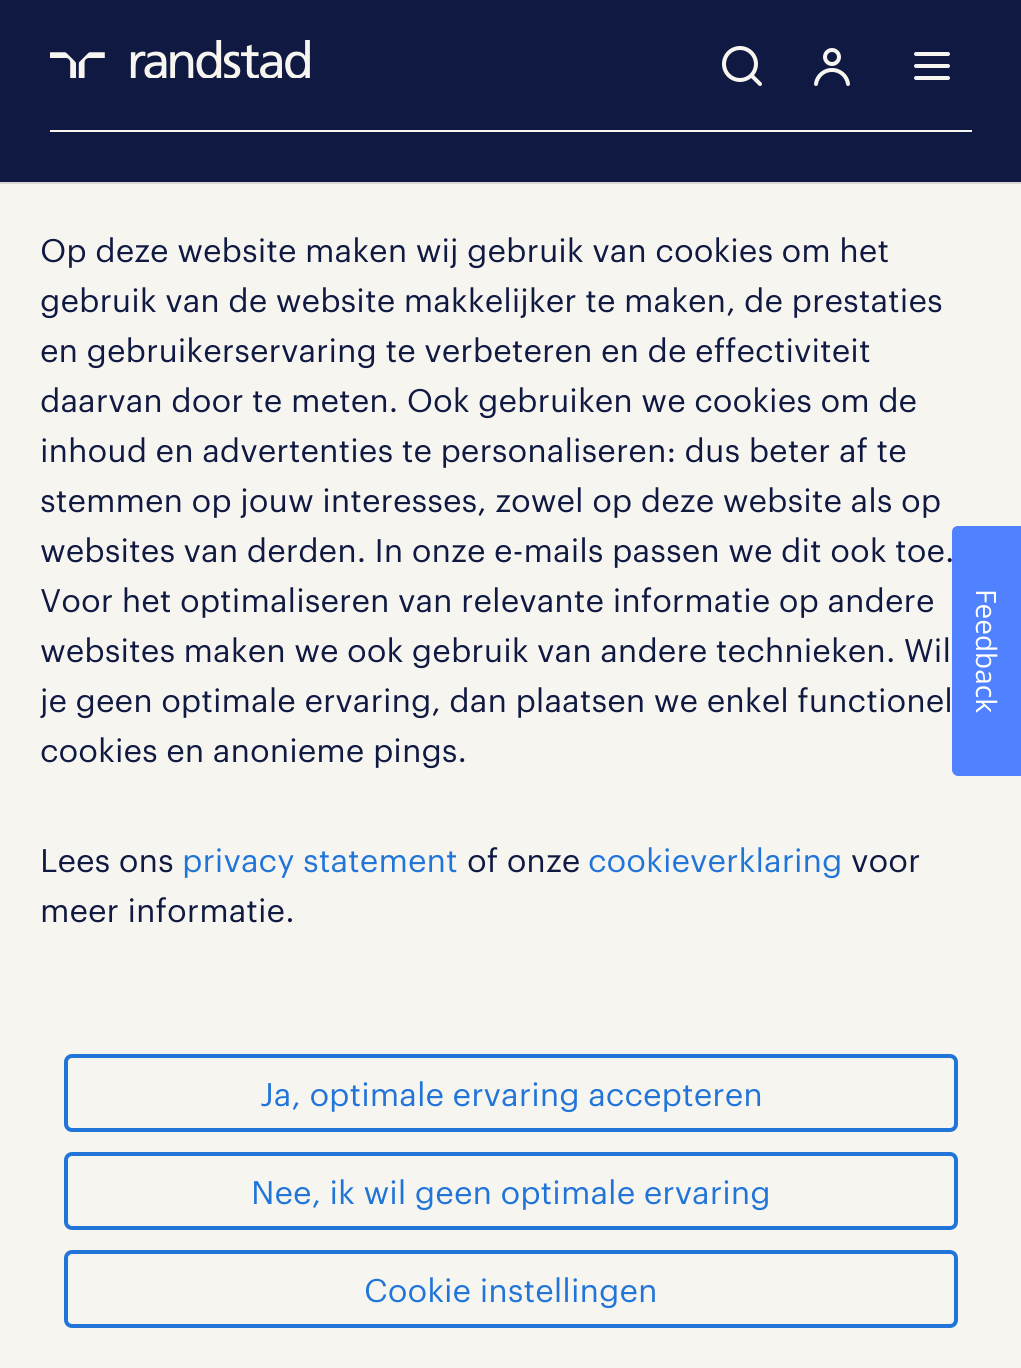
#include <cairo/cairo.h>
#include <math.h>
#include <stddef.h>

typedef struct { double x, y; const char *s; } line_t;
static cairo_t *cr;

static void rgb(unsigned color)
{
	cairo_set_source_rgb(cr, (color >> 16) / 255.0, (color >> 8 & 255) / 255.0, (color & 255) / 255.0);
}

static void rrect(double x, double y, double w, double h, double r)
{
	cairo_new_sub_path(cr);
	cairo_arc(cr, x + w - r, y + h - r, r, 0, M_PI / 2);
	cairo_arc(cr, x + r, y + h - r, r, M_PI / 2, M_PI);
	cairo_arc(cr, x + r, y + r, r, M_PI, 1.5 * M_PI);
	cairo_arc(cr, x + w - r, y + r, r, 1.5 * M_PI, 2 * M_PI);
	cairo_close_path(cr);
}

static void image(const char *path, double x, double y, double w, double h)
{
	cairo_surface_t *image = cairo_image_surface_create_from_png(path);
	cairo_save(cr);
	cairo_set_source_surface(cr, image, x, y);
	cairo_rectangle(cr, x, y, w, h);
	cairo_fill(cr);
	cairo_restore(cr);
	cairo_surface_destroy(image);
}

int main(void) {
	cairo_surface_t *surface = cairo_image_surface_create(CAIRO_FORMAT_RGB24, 1021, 1368);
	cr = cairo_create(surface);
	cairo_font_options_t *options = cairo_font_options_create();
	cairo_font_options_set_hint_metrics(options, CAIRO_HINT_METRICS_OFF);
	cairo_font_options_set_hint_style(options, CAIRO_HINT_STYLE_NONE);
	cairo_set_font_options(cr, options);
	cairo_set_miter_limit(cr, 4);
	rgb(0x0f1941);
	cairo_paint(cr);
	rgb(0xf7f5f0);
	cairo_rectangle(cr, 50, 130, 922, 2);
	cairo_fill(cr);
	image("img/1.png", 50, 40, 260, 38);
	image("img/2.png", 722, 46, 40, 40);
	image("img/3.png", 814, 48, 36, 38);
	image("img/4.png", 914, 52, 36, 28);
	cairo_rectangle(cr, 0, 184, 1021, 1184);
	cairo_fill(cr);
	rgb(0xd7d7d7);
	cairo_rectangle(cr, 0, 182, 1021, 2);
	cairo_fill(cr);
	rrect(66, 1056, 890, 74, 6);
	rgb(0x2175d9);
	cairo_set_line_width(cr, 4);
	cairo_stroke(cr);
	rrect(66, 1154, 890, 74, 6);
	cairo_stroke(cr);
	rrect(66, 1252, 890, 74, 6);
	cairo_stroke(cr);
	rgb(0x5081ff);
	cairo_new_path(cr);
	cairo_move_to(cr, 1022, 526);
	cairo_line_to(cr, 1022, 776);
	cairo_line_to(cr, 958, 776);
	cairo_curve_to(cr, 955, 776, 952, 773, 952, 770);
	cairo_line_to(cr, 952, 532);
	cairo_curve_to(cr, 952, 528, 955, 526, 958, 526);
	cairo_close_path(cr);
	cairo_fill(cr);
	cairo_select_font_face(cr, "Graphik", CAIRO_FONT_SLANT_NORMAL, CAIRO_FONT_WEIGHT_NORMAL);
	cairo_set_font_size(cr, 32);
	rgb(0x0f1941);
	{
		static const line_t items[] = {
			{40, 262, "Op deze website maken wij gebruik van cookies om het"},
			{40, 312, "gebruik van de website makkelijker te maken, de prestaties"},
			{40, 362, "en gebruikerservaring te verbeteren en de effectiviteit"},
			{40, 412, "daarvan door te meten. Ook gebruiken we cookies om de"},
			{40, 462, "inhoud en advertenties te personaliseren: dus beter af te"},
			{40, 512, "stemmen op jouw interesses, zowel op deze website als op"},
			{40, 562, "websites van derden. In onze e-mails passen we dit ook toe."},
			{40, 612, "Voor het optimaliseren van relevante informatie op andere"},
			{40, 662, "websites maken we ook gebruik van andere technieken. Wil"},
			{40, 712, "je geen optimale ervaring, dan plaatsen we enkel functionel"},
			{40, 762, "cookies en anonieme pings."},
			{40, 872, "Lees ons"},
		};
		for (size_t i = 0; i < sizeof items / sizeof *items; i++) {
			cairo_move_to(cr, items[i].x, items[i].y);
			cairo_show_text(cr, items[i].s);
		}
	}
	rgb(0x2175d9);
	cairo_move_to(cr, 182, 872);
	cairo_show_text(cr, "privacy statement");
	rgb(0x0f1941);
	cairo_move_to(cr, 467, 872);
	cairo_show_text(cr, "of onze");
	rgb(0x2175d9);
	cairo_move_to(cr, 588, 872);
	cairo_show_text(cr, "cookieverklaring");
	rgb(0x0f1941);
	cairo_move_to(cr, 851, 872);
	cairo_show_text(cr, "voor");
	cairo_move_to(cr, 40, 922);
	cairo_show_text(cr, "meer informatie.");
	rgb(0x2175d9);
	{
		static const line_t items[] = {
			{260, 1106, "Ja, optimale ervaring accepteren"},
			{251, 1204, "Nee, ik wil geen optimale ervaring"},
			{364, 1302, "Cookie instellingen"},
		};
		for (size_t i = 0; i < sizeof items / sizeof *items; i++) {
			cairo_move_to(cr, items[i].x, items[i].y);
			cairo_show_text(cr, items[i].s);
		}
	}
	cairo_select_font_face(cr, "Open Sans", CAIRO_FONT_SLANT_NORMAL, CAIRO_FONT_WEIGHT_NORMAL);
	cairo_set_font_size(cr, 28);
	rgb(0xffffff);
	cairo_save(cr);
	cairo_translate(cr, 976, 589);
	cairo_rotate(cr, 90 * M_PI / 180);
	cairo_move_to(cr, 0, 0);
	cairo_show_text(cr, "Feedback");
	cairo_restore(cr);
	cairo_surface_write_to_png(surface, "page.png");
	cairo_font_options_destroy(options);
	cairo_destroy(cr);
	cairo_surface_destroy(surface);
	return 0;
}
